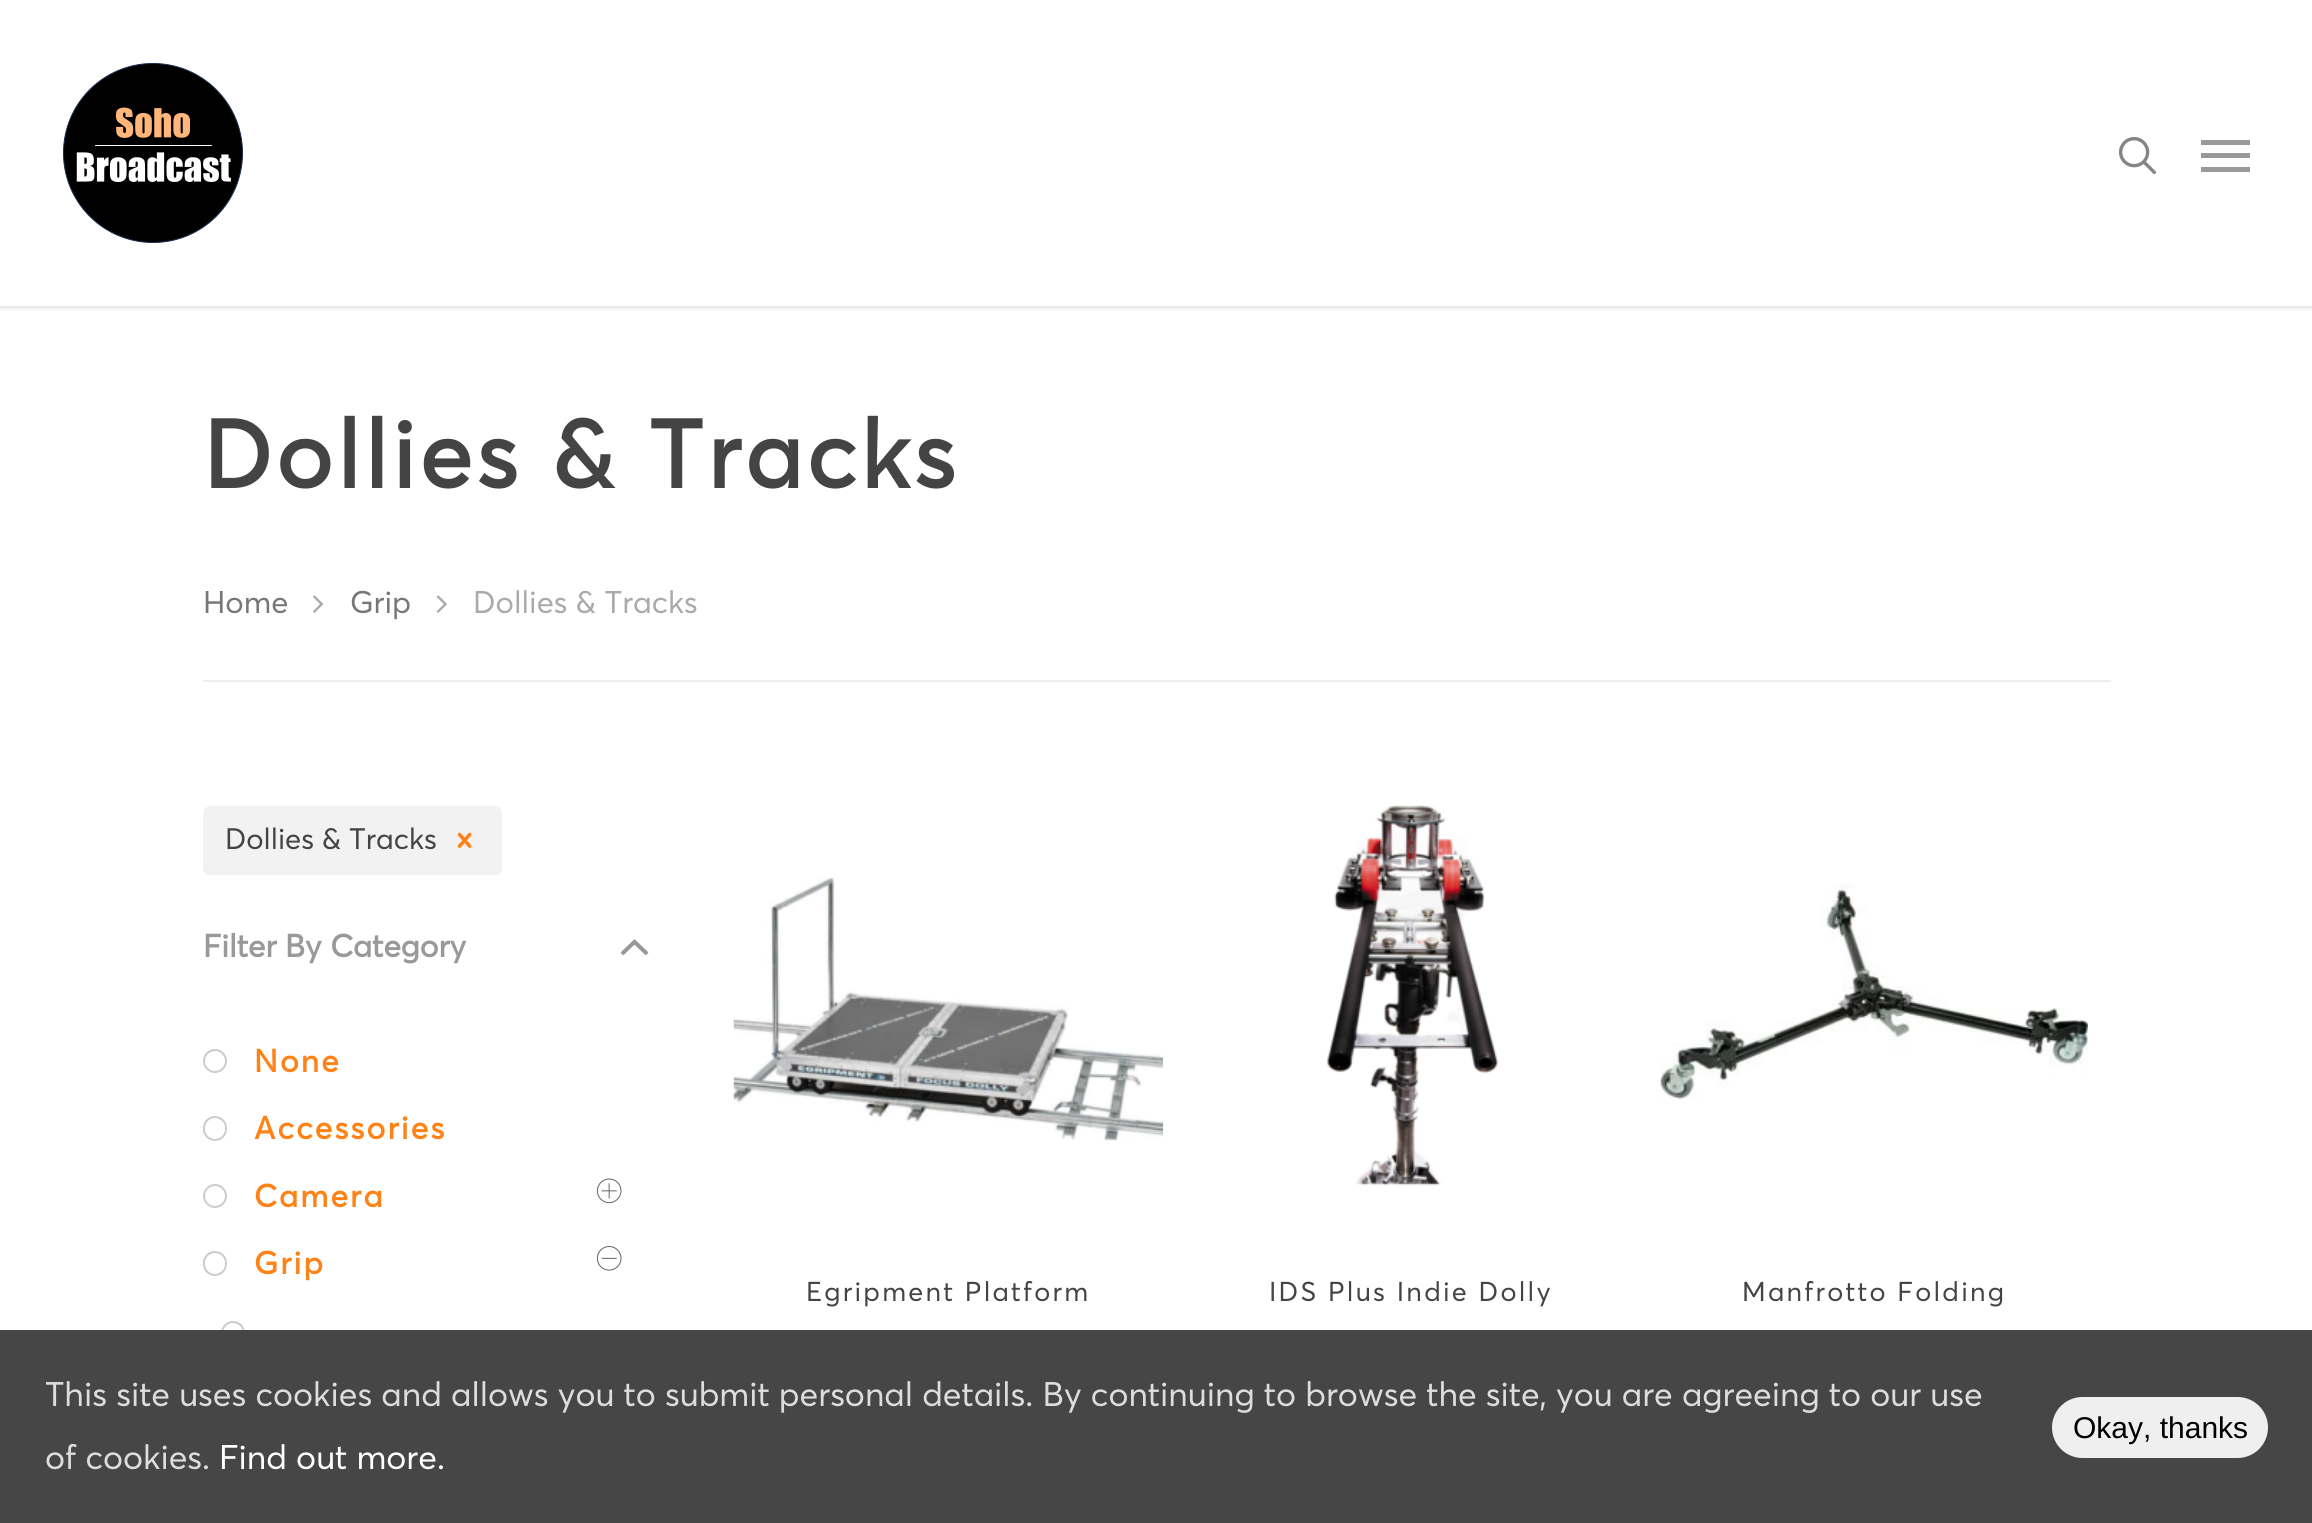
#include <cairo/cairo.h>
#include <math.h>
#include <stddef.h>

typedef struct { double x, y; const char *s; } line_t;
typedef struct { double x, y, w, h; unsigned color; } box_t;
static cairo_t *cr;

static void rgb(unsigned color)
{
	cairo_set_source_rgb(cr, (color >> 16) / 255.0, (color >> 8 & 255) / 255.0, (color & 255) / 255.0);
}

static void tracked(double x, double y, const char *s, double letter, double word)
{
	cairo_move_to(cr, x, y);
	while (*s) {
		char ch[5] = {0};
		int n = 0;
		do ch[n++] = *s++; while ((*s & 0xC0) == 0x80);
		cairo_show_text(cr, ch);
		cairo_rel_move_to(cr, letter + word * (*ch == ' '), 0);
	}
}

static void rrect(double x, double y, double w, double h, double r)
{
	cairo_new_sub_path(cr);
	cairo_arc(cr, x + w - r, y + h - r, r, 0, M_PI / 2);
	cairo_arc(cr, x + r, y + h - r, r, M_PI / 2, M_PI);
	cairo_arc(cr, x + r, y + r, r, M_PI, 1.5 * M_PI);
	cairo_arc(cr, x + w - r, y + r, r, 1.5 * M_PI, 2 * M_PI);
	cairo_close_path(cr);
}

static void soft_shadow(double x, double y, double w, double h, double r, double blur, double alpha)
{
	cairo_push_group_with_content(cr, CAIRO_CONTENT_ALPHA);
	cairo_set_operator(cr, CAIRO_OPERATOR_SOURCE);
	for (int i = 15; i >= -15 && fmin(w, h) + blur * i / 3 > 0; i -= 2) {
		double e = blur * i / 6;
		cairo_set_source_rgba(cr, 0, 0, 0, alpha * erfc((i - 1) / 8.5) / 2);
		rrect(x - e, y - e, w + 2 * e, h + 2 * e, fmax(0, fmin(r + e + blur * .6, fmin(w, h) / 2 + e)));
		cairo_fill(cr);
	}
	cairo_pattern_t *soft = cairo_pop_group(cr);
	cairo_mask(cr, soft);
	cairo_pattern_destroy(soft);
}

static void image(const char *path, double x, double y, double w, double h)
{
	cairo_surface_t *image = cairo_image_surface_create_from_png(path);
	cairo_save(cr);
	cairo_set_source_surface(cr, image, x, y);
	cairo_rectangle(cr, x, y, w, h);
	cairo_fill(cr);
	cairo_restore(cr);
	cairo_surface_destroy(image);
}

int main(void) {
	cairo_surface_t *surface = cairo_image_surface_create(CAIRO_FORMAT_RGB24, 2312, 1523);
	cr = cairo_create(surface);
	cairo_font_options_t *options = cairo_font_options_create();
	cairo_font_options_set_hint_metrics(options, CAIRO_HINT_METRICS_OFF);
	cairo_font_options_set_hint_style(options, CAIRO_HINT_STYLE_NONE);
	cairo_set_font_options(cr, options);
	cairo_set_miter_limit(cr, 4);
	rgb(0xffffff);
	cairo_paint(cr);
	cairo_save(cr);
	cairo_rectangle(cr, 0, 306, 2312, 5);
	cairo_clip(cr);
	rgb(0x000000);
	soft_shadow(0, 0, 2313, 306, 0, 3.5, 0.22);
	cairo_restore(cr);
	image("img/1.png", 63, 63, 180, 180);
	image("img/2.png", 2119, 137, 37, 37);
	{
		static const box_t items[] = {
			{2201, 140, 49, 5, 0x999999},
			{2201, 167, 49, 5, 0x999999},
			{2201, 153, 49, 5, 0x999999},
			{203, 680, 1908, 2, 0xededed},
		};
		for (size_t i = 0; i < sizeof items / sizeof *items; i++) {
			rgb(items[i].color);
			cairo_rectangle(cr, items[i].x, items[i].y, items[i].w, items[i].h);
			cairo_fill(cr);
		}
	}
	image("img/3.png", 313, 595, 11, 18);
	image("img/4.png", 436, 595, 11, 18);
	rgb(0xf2f2f2);
	rrect(203, 806, 299, 69, 7);
	cairo_fill(cr);
	image("img/5.png", 457, 832, 15, 16);
	image("img/6.png", 620, 939, 29, 17);
	cairo_arc(cr, 215, 1061, 11, 0, 2 * M_PI);
	rgb(0xcccccc);
	cairo_stroke(cr);
	rrect(204, 1117, 22, 23, 11);
	cairo_stroke(cr);
	cairo_arc(cr, 215, 1196, 11, 0, 2 * M_PI);
	cairo_stroke(cr);
	image("img/7.png", 596, 1178, 26, 26);
	rrect(204, 1252, 22, 23, 11);
	cairo_stroke(cr);
	image("img/8.png", 596, 1246, 26, 25);
	rrect(222, 1322, 22, 23, 11);
	cairo_stroke(cr);
	image("img/9.png", 733, 877, 431, 264);
	image("img/10.png", 1327, 805, 172, 381);
	image("img/11.png", 1660, 883, 428, 217);
	rgb(0x464646);
	cairo_rectangle(cr, 0, 1330, 2312, 193);
	cairo_fill(cr);
	rgb(0xefefef);
	rrect(2052, 1397, 216, 61, 30.5);
	cairo_fill(cr);
	cairo_select_font_face(cr, "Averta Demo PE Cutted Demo", CAIRO_FONT_SLANT_NORMAL, CAIRO_FONT_WEIGHT_BOLD);
	cairo_set_font_size(cr, 94.5);
	rgb(0x444444);
	tracked(203, 488, "Dollies & Tracks", 4.5, 0);
	cairo_select_font_face(cr, "Averta Demo PE Cutted Demo", CAIRO_FONT_SLANT_NORMAL, CAIRO_FONT_WEIGHT_NORMAL);
	cairo_set_font_size(cr, 31);
	rgb(0x777777);
	cairo_move_to(cr, 203, 613);
	cairo_show_text(cr, "Home");
	cairo_move_to(cr, 350, 613);
	cairo_show_text(cr, "Grip");
	rgb(0xaaaaaa);
	cairo_move_to(cr, 473, 613);
	cairo_show_text(cr, "Dollies & Tracks");
	cairo_set_font_size(cr, 29.25);
	rgb(0x444444);
	cairo_move_to(cr, 225, 849);
	cairo_show_text(cr, "Dollies & Tracks");
	cairo_select_font_face(cr, "Averta Demo PE Cutted Demo", CAIRO_FONT_SLANT_NORMAL, CAIRO_FONT_WEIGHT_BOLD);
	cairo_set_font_size(cr, 31.5);
	rgb(0x999999);
	cairo_move_to(cr, 203, 957);
	cairo_show_text(cr, "Filter By Category");
	rgb(0xff8216);
	{
		static const line_t items[] = {
			{254, 1072, "None"},
			{254, 1139, "Accessories"},
			{254, 1207, "Camera"},
			{254, 1274, "Grip"},
		};
		for (size_t i = 0; i < sizeof items / sizeof *items; i++) {
			tracked(items[i].x, items[i].y, items[i].s, 2.25, 0);
		}
	}
	cairo_select_font_face(cr, "Averta Demo PE Cutted Demo", CAIRO_FONT_SLANT_NORMAL, CAIRO_FONT_WEIGHT_NORMAL);
	cairo_set_font_size(cr, 27);
	rgb(0x444444);
	{
		static const line_t items[] = {
			{806, 1301, "Egripment Platform"},
			{1269, 1301, "IDS Plus Indie Dolly"},
			{1742, 1301, "Manfrotto Folding"},
		};
		for (size_t i = 0; i < sizeof items / sizeof *items; i++) {
			tracked(items[i].x, items[i].y, items[i].s, 2.25, 0);
		}
	}
	cairo_set_font_size(cr, 33.75);
	rgb(0xdddddd);
	cairo_move_to(cr, 45, 1406);
	cairo_show_text(cr, "This site uses cookies and allows you to submit personal details. By continuing to browse the site, you are agreeing to our use");
	cairo_move_to(cr, 45, 1469);
	cairo_show_text(cr, "of cookies.");
	rgb(0xffffff);
	cairo_move_to(cr, 219, 1469);
	cairo_show_text(cr, "Find out more.");
	cairo_select_font_face(cr, "Liberation Sans", CAIRO_FONT_SLANT_NORMAL, CAIRO_FONT_WEIGHT_NORMAL);
	cairo_set_font_size(cr, 30);
	rgb(0x000000);
	cairo_move_to(cr, 2073, 1438);
	cairo_show_text(cr, "Okay, thanks");
	cairo_surface_write_to_png(surface, "page.png");
	cairo_font_options_destroy(options);
	cairo_destroy(cr);
	cairo_surface_destroy(surface);
	return 0;
}
